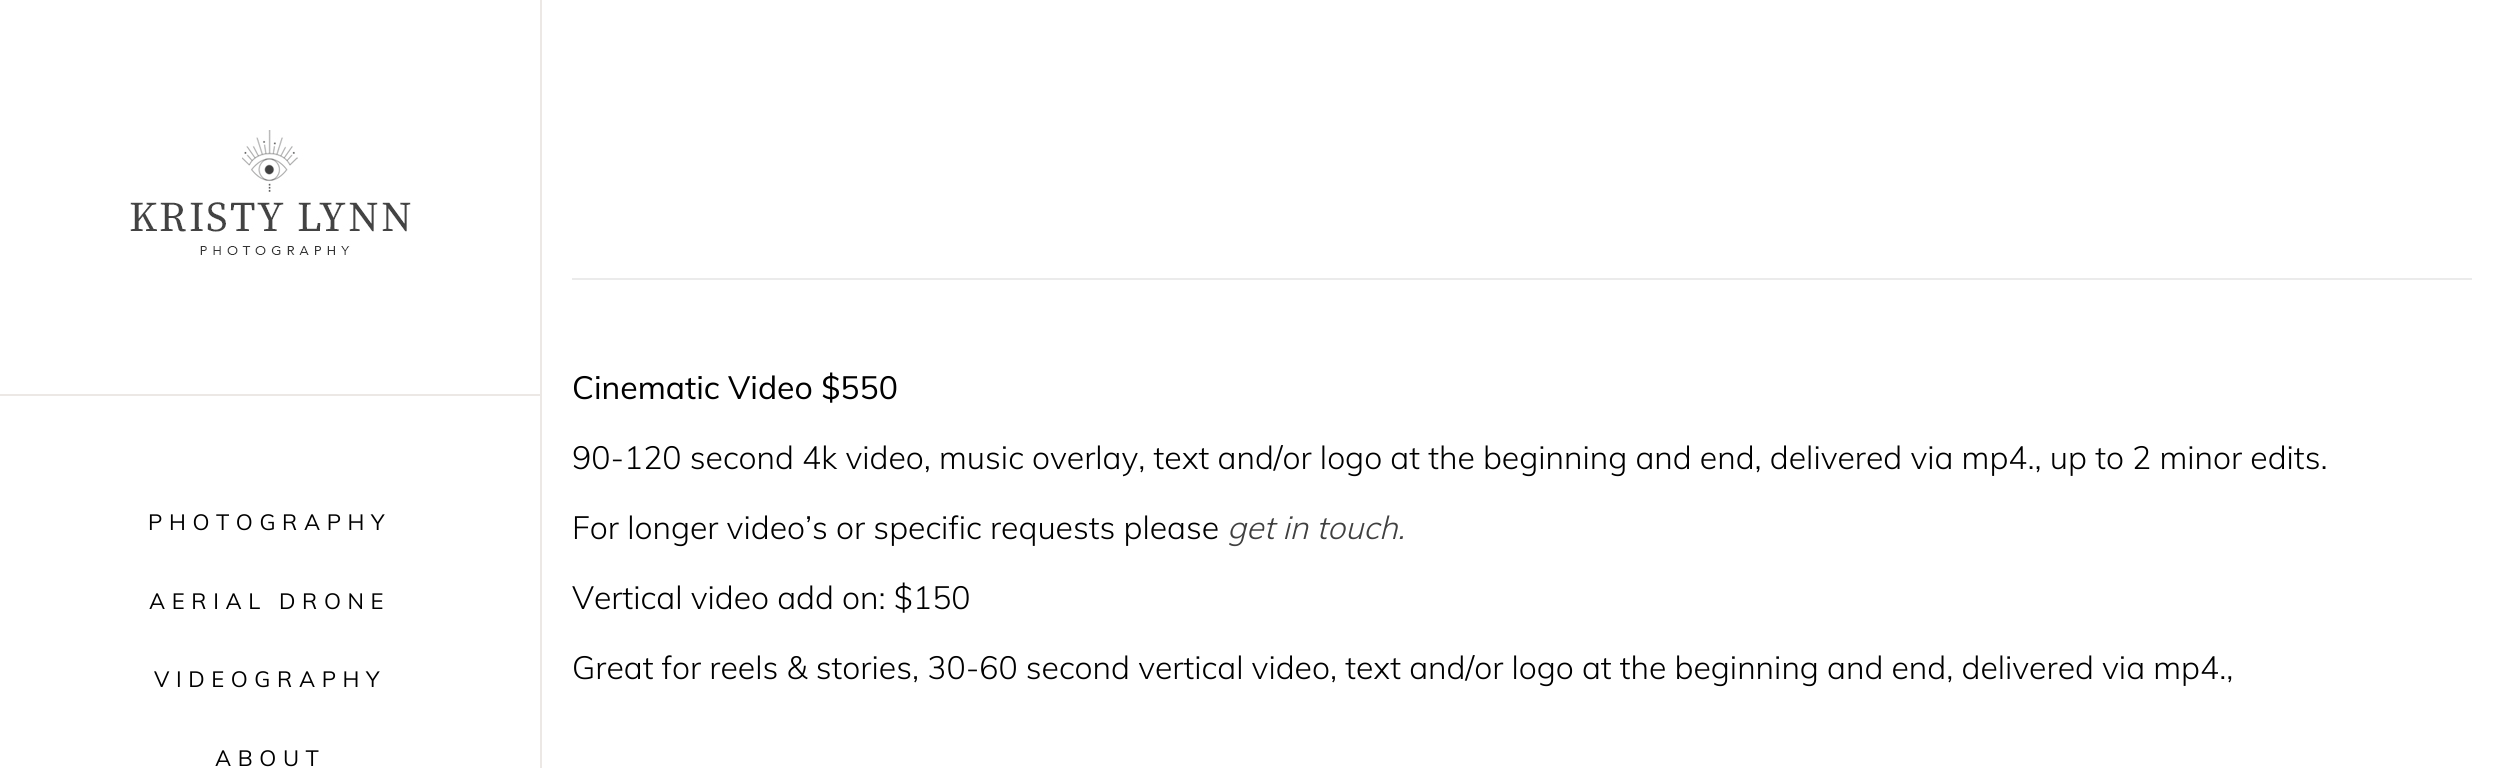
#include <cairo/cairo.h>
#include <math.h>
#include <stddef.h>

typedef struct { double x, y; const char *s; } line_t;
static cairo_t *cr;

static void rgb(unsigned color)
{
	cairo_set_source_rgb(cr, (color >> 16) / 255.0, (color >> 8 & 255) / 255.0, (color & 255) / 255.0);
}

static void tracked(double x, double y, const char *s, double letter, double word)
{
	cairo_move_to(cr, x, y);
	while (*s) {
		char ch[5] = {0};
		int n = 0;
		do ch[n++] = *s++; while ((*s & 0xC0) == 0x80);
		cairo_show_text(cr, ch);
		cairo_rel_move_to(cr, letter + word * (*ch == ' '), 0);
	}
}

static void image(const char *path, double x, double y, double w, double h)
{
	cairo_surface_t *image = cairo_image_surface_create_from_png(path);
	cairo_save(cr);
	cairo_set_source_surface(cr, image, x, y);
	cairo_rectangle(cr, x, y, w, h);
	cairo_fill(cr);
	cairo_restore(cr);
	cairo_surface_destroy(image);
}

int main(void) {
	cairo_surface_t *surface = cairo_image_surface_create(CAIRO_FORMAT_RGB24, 2504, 768);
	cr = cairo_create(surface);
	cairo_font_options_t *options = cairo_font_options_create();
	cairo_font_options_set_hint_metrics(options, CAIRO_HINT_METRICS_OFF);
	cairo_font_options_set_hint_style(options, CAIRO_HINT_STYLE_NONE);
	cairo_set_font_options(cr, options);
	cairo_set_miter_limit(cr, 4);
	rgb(0xffffff);
	cairo_paint(cr);
	rgb(0xece8e5);
	cairo_rectangle(cr, 0, 394, 540, 2);
	cairo_fill(cr);
	image("img/1.png", 130, 130, 281, 125);
	cairo_rectangle(cr, 540, 0, 2, 768);
	cairo_fill(cr);
	rgb(0xebebeb);
	cairo_rectangle(cr, 572, 278, 1900, 2);
	cairo_fill(cr);
	cairo_select_font_face(cr, "Muli", CAIRO_FONT_SLANT_NORMAL, CAIRO_FONT_WEIGHT_NORMAL);
	cairo_set_font_size(cr, 22);
	rgb(0x000000);
	{
		static const line_t items[] = {
			{148, 530, "PHOTOGRAPHY"},
			{149, 609, "AERIAL DRONE"},
			{154, 687, "VIDEOGRAPHY"},
			{215, 766, "ABOUT"},
		};
		for (size_t i = 0; i < sizeof items / sizeof *items; i++) {
			tracked(items[i].x, items[i].y, items[i].s, 6.6, 0);
		}
	}
	cairo_set_font_size(cr, 32);
	cairo_move_to(cr, 572, 399);
	cairo_show_text(cr, "Cinematic Video $550");
	cairo_select_font_face(cr, "Muli Light", CAIRO_FONT_SLANT_NORMAL, CAIRO_FONT_WEIGHT_NORMAL);
	cairo_move_to(cr, 572, 469);
	cairo_show_text(cr, "90-120 second 4k video, music overlay, text and/or logo at the beginning and end, delivered via mp4., up to 2 minor edits.");
	cairo_move_to(cr, 572, 539);
	cairo_show_text(cr, "For longer video’s or specific requests please");
	cairo_select_font_face(cr, "Muli Light", CAIRO_FONT_SLANT_ITALIC, CAIRO_FONT_WEIGHT_NORMAL);
	rgb(0x3f3f3f);
	cairo_move_to(cr, 1227, 539);
	cairo_show_text(cr, "get in touch.");
	cairo_select_font_face(cr, "Muli Light", CAIRO_FONT_SLANT_NORMAL, CAIRO_FONT_WEIGHT_NORMAL);
	rgb(0x000000);
	cairo_move_to(cr, 572, 609);
	cairo_show_text(cr, "Vertical video add on: $150");
	cairo_move_to(cr, 572, 679);
	cairo_show_text(cr, "Great for reels & stories, 30-60 second vertical video, text and/or logo at the beginning and end, delivered via mp4.,");
	cairo_surface_write_to_png(surface, "page.png");
	cairo_font_options_destroy(options);
	cairo_destroy(cr);
	cairo_surface_destroy(surface);
	return 0;
}
